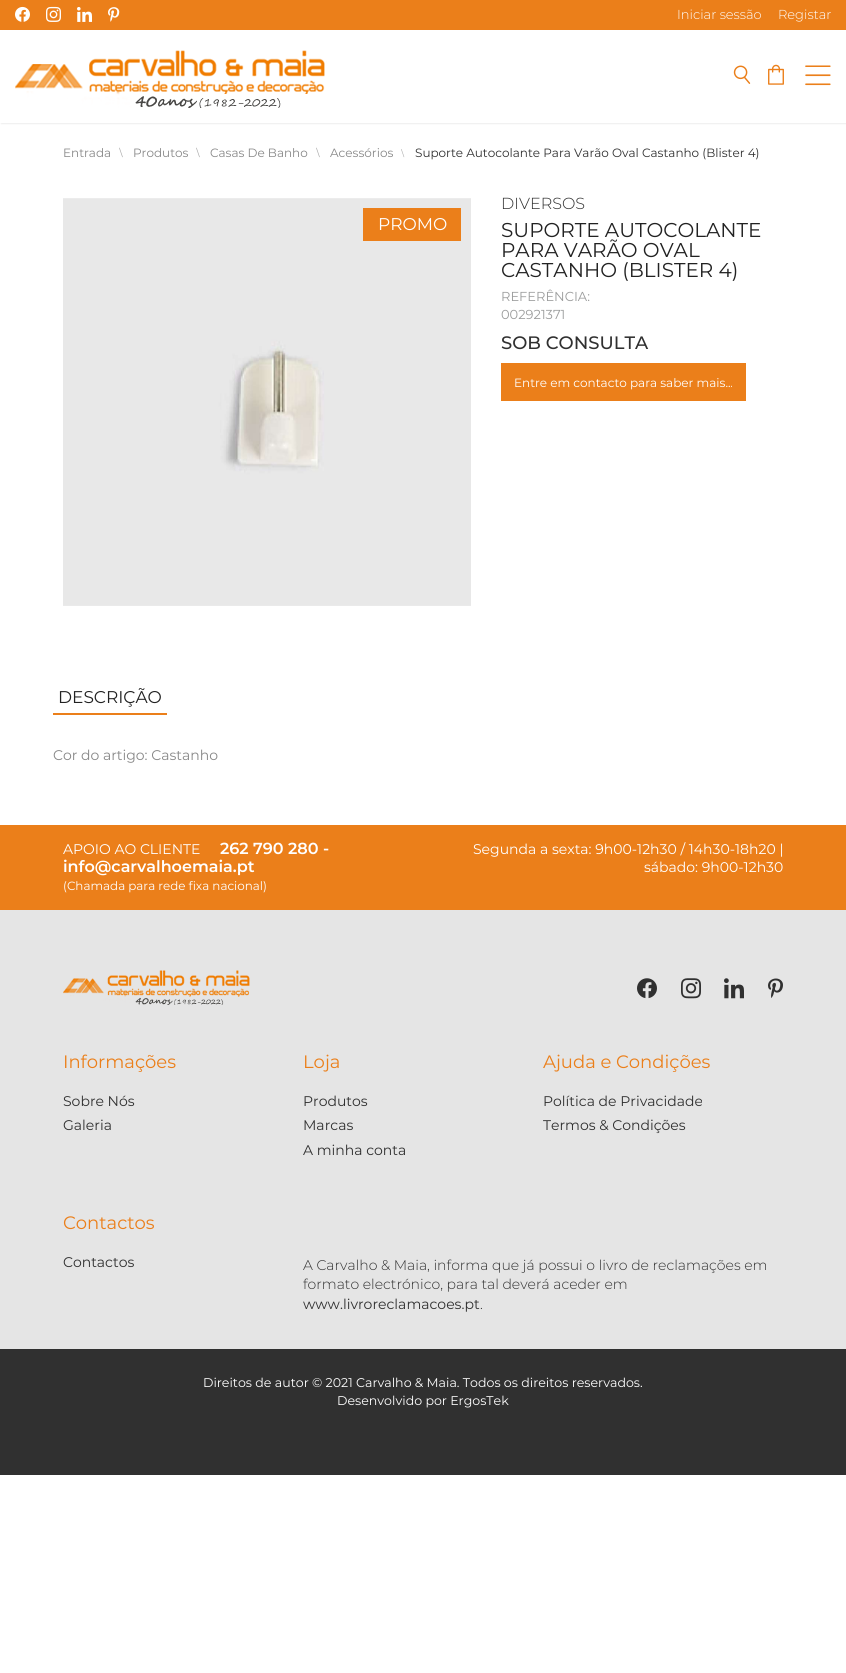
#include <cairo/cairo.h>
#include <math.h>
#include <stddef.h>

typedef struct { double x, y; const char *s; } line_t;
typedef struct { double x, y, w, h; unsigned color; } box_t;
static cairo_t *cr;

static void rgb(unsigned color)
{
	cairo_set_source_rgb(cr, (color >> 16) / 255.0, (color >> 8 & 255) / 255.0, (color & 255) / 255.0);
}

static void rrect(double x, double y, double w, double h, double r)
{
	cairo_new_sub_path(cr);
	cairo_arc(cr, x + w - r, y + h - r, r, 0, M_PI / 2);
	cairo_arc(cr, x + r, y + h - r, r, M_PI / 2, M_PI);
	cairo_arc(cr, x + r, y + r, r, M_PI, 1.5 * M_PI);
	cairo_arc(cr, x + w - r, y + r, r, 1.5 * M_PI, 2 * M_PI);
	cairo_close_path(cr);
}

static void soft_shadow(double x, double y, double w, double h, double r, double blur, double alpha)
{
	cairo_push_group_with_content(cr, CAIRO_CONTENT_ALPHA);
	cairo_set_operator(cr, CAIRO_OPERATOR_SOURCE);
	for (int i = 15; i >= -15 && fmin(w, h) + blur * i / 3 > 0; i -= 2) {
		double e = blur * i / 6;
		cairo_set_source_rgba(cr, 0, 0, 0, alpha * erfc((i - 1) / 8.5) / 2);
		rrect(x - e, y - e, w + 2 * e, h + 2 * e, fmax(0, fmin(r + e + blur * .6, fmin(w, h) / 2 + e)));
		cairo_fill(cr);
	}
	cairo_pattern_t *soft = cairo_pop_group(cr);
	cairo_mask(cr, soft);
	cairo_pattern_destroy(soft);
}

static void image(const char *path, double x, double y, double w, double h)
{
	cairo_surface_t *image = cairo_image_surface_create_from_png(path);
	cairo_save(cr);
	cairo_set_source_surface(cr, image, x, y);
	cairo_rectangle(cr, x, y, w, h);
	cairo_fill(cr);
	cairo_restore(cr);
	cairo_surface_destroy(image);
}

int main(void) {
	cairo_surface_t *surface = cairo_image_surface_create(CAIRO_FORMAT_RGB24, 846, 1673);
	cr = cairo_create(surface);
	cairo_font_options_t *options = cairo_font_options_create();
	cairo_font_options_set_hint_metrics(options, CAIRO_HINT_METRICS_OFF);
	cairo_font_options_set_hint_style(options, CAIRO_HINT_STYLE_NONE);
	cairo_set_font_options(cr, options);
	cairo_set_miter_limit(cr, 4);
	rgb(0xffffff);
	cairo_paint(cr);
	rgb(0xeb7f1a);
	cairo_rectangle(cr, 0, 0, 846, 30);
	cairo_fill(cr);
	image("img/1.png", 15, 6, 15, 16);
	image("img/2.png", 46, 6, 15, 16);
	image("img/3.png", 77, 7, 15, 15);
	image("img/4.png", 108, 7, 12, 15);
	cairo_save(cr);
	cairo_rectangle(cr, 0, 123, 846, 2);
	cairo_clip(cr);
	rgb(0xefefef);
	soft_shadow(1, 31, 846, 93, 0, 0.5, 1);
	cairo_restore(cr);
	image("img/5.png", 15, 50, 312, 58);
	image("img/6.png", 733, 65, 18, 19);
	image("img/7.png", 768, 64, 16, 21);
	image("img/8.png", 805, 65, 26, 21);
	image("img/9.png", 63, 198, 408, 408);
	{
		static const box_t items[] = {
			{363, 208, 98, 33, 0xeb7f1a},
			{501, 363, 245, 38, 0xeb7f1a},
			{53, 713, 114, 2, 0xeb7f1a},
			{0, 825, 846, 85, 0xeb7f1a},
			{0, 910, 846, 439, 0xe5e5e5},
		};
		for (size_t i = 0; i < sizeof items / sizeof *items; i++) {
			rgb(items[i].color);
			cairo_rectangle(cr, items[i].x, items[i].y, items[i].w, items[i].h);
			cairo_fill(cr);
		}
	}
	image("img/10.png", 63, 970, 187, 35);
	image("img/11.png", 637, 978, 20, 21);
	image("img/12.png", 681, 978, 20, 21);
	image("img/13.png", 724, 978, 20, 21);
	image("img/14.png", 768, 978, 15, 20);
	rgb(0x303030);
	cairo_rectangle(cr, 0, 1349, 846, 126);
	cairo_fill(cr);
	cairo_select_font_face(cr, "Montserrat Light", CAIRO_FONT_SLANT_NORMAL, CAIRO_FONT_WEIGHT_NORMAL);
	cairo_set_font_size(cr, 13);
	rgb(0xffffff);
	cairo_move_to(cr, 677, 19);
	cairo_show_text(cr, "Iniciar sessão");
	cairo_move_to(cr, 778, 19);
	cairo_show_text(cr, "Registar");
	cairo_select_font_face(cr, "Montserrat", CAIRO_FONT_SLANT_NORMAL, CAIRO_FONT_WEIGHT_NORMAL);
	cairo_set_font_size(cr, 12);
	rgb(0x888888);
	cairo_move_to(cr, 63, 157);
	cairo_show_text(cr, "Entrada");
	cairo_select_font_face(cr, "Liberation Serif", CAIRO_FONT_SLANT_NORMAL, CAIRO_FONT_WEIGHT_NORMAL);
	cairo_set_font_size(cr, 14);
	rgb(0xaaaaaa);
	cairo_move_to(cr, 119, 157);
	cairo_show_text(cr, "\\");
	cairo_select_font_face(cr, "Montserrat", CAIRO_FONT_SLANT_NORMAL, CAIRO_FONT_WEIGHT_NORMAL);
	cairo_set_font_size(cr, 12);
	rgb(0x888888);
	cairo_move_to(cr, 133, 157);
	cairo_show_text(cr, "Produtos");
	cairo_select_font_face(cr, "Liberation Serif", CAIRO_FONT_SLANT_NORMAL, CAIRO_FONT_WEIGHT_NORMAL);
	cairo_set_font_size(cr, 14);
	rgb(0xaaaaaa);
	cairo_move_to(cr, 196, 157);
	cairo_show_text(cr, "\\");
	cairo_select_font_face(cr, "Montserrat", CAIRO_FONT_SLANT_NORMAL, CAIRO_FONT_WEIGHT_NORMAL);
	cairo_set_font_size(cr, 12);
	rgb(0x888888);
	cairo_move_to(cr, 210, 157);
	cairo_show_text(cr, "Casas De Banho");
	cairo_select_font_face(cr, "Liberation Serif", CAIRO_FONT_SLANT_NORMAL, CAIRO_FONT_WEIGHT_NORMAL);
	cairo_set_font_size(cr, 14);
	rgb(0xaaaaaa);
	cairo_move_to(cr, 316, 157);
	cairo_show_text(cr, "\\");
	cairo_select_font_face(cr, "Montserrat", CAIRO_FONT_SLANT_NORMAL, CAIRO_FONT_WEIGHT_NORMAL);
	cairo_set_font_size(cr, 12);
	rgb(0x888888);
	cairo_move_to(cr, 330, 157);
	cairo_show_text(cr, "Acessórios");
	cairo_select_font_face(cr, "Liberation Serif", CAIRO_FONT_SLANT_NORMAL, CAIRO_FONT_WEIGHT_NORMAL);
	rgb(0xaaaaaa);
	cairo_move_to(cr, 401, 157);
	cairo_show_text(cr, "\\");
	cairo_select_font_face(cr, "Montserrat", CAIRO_FONT_SLANT_NORMAL, CAIRO_FONT_WEIGHT_NORMAL);
	rgb(0x303030);
	cairo_move_to(cr, 415, 157);
	cairo_show_text(cr, "Suporte Autocolante Para Varão Oval Castanho (Blister 4)");
	cairo_set_font_size(cr, 17);
	rgb(0xffffff);
	cairo_move_to(cr, 378, 230);
	cairo_show_text(cr, "PROMO");
	cairo_select_font_face(cr, "Montserrat Light", CAIRO_FONT_SLANT_NORMAL, CAIRO_FONT_WEIGHT_NORMAL);
	cairo_set_font_size(cr, 16);
	rgb(0x303030);
	cairo_move_to(cr, 501, 209);
	cairo_show_text(cr, "DIVERSOS");
	cairo_select_font_face(cr, "Montserrat", CAIRO_FONT_SLANT_NORMAL, CAIRO_FONT_WEIGHT_NORMAL);
	cairo_set_font_size(cr, 20);
	rgb(0x222222);
	{
		static const line_t items[] = {
			{501, 237, "SUPORTE AUTOCOLANTE"},
			{501, 257, "PARA VARÃO OVAL"},
			{501, 277, "CASTANHO (BLISTER 4)"},
		};
		for (size_t i = 0; i < sizeof items / sizeof *items; i++) {
			cairo_move_to(cr, items[i].x, items[i].y);
			cairo_show_text(cr, items[i].s);
		}
	}
	cairo_set_font_size(cr, 13);
	rgb(0x9b9c9c);
	cairo_move_to(cr, 501, 301);
	cairo_show_text(cr, "REFERÊNCIA:");
	cairo_move_to(cr, 501, 319);
	cairo_show_text(cr, "002921371");
	cairo_select_font_face(cr, "Montserrat Medium", CAIRO_FONT_SLANT_NORMAL, CAIRO_FONT_WEIGHT_NORMAL);
	cairo_set_font_size(cr, 18);
	rgb(0x303030);
	cairo_move_to(cr, 501, 349);
	cairo_show_text(cr, "SOB CONSULTA");
	cairo_select_font_face(cr, "Montserrat", CAIRO_FONT_SLANT_NORMAL, CAIRO_FONT_WEIGHT_NORMAL);
	cairo_set_font_size(cr, 12);
	rgb(0xffffff);
	cairo_move_to(cr, 514, 387);
	cairo_show_text(cr, "Entre em contacto para saber mais...");
	cairo_set_font_size(cr, 17);
	rgb(0x222222);
	cairo_move_to(cr, 58, 703);
	cairo_show_text(cr, "DESCRIÇÃO");
	cairo_set_font_size(cr, 14);
	rgb(0x888888);
	cairo_move_to(cr, 53, 760);
	cairo_show_text(cr, "Cor do artigo: Castanho");
	rgb(0xffffff);
	cairo_move_to(cr, 63, 854);
	cairo_show_text(cr, "APOIO AO CLIENTE");
	cairo_select_font_face(cr, "Montserrat SemiBold", CAIRO_FONT_SLANT_NORMAL, CAIRO_FONT_WEIGHT_NORMAL);
	cairo_set_font_size(cr, 16);
	cairo_move_to(cr, 220, 854);
	cairo_show_text(cr, "262 790 280 -");
	cairo_move_to(cr, 63, 872);
	cairo_show_text(cr, "info@carvalhoemaia.pt");
	cairo_select_font_face(cr, "Montserrat", CAIRO_FONT_SLANT_NORMAL, CAIRO_FONT_WEIGHT_NORMAL);
	cairo_set_font_size(cr, 11.9);
	cairo_move_to(cr, 63, 890);
	cairo_show_text(cr, "(Chamada para rede fixa nacional)");
	cairo_set_font_size(cr, 14);
	cairo_move_to(cr, 473, 854);
	cairo_show_text(cr, "Segunda a sexta: 9h00-12h30 / 14h30-18h20 |");
	cairo_move_to(cr, 644, 872);
	cairo_show_text(cr, "sábado: 9h00-12h30");
	cairo_set_font_size(cr, 18);
	rgb(0xeb7f1a);
	cairo_move_to(cr, 63, 1068);
	cairo_show_text(cr, "Informações");
	cairo_set_font_size(cr, 14);
	rgb(0x303030);
	cairo_move_to(cr, 63, 1106);
	cairo_show_text(cr, "Sobre Nós");
	cairo_move_to(cr, 63, 1130);
	cairo_show_text(cr, "Galeria");
	cairo_set_font_size(cr, 18);
	rgb(0xeb7f1a);
	cairo_move_to(cr, 303, 1068);
	cairo_show_text(cr, "Loja");
	cairo_set_font_size(cr, 14);
	rgb(0x303030);
	{
		static const line_t items[] = {
			{303, 1106, "Produtos"},
			{303, 1130, "Marcas"},
			{303, 1155, "A minha conta"},
		};
		for (size_t i = 0; i < sizeof items / sizeof *items; i++) {
			cairo_move_to(cr, items[i].x, items[i].y);
			cairo_show_text(cr, items[i].s);
		}
	}
	cairo_set_font_size(cr, 18);
	rgb(0xeb7f1a);
	cairo_move_to(cr, 543, 1068);
	cairo_show_text(cr, "Ajuda e Condições");
	cairo_set_font_size(cr, 14);
	rgb(0x303030);
	cairo_move_to(cr, 543, 1106);
	cairo_show_text(cr, "Política de Privacidade");
	cairo_move_to(cr, 543, 1130);
	cairo_show_text(cr, "Termos & Condições");
	cairo_set_font_size(cr, 18);
	rgb(0xeb7f1a);
	cairo_move_to(cr, 63, 1229);
	cairo_show_text(cr, "Contactos");
	cairo_set_font_size(cr, 14);
	rgb(0x303030);
	cairo_move_to(cr, 63, 1267);
	cairo_show_text(cr, "Contactos");
	cairo_select_font_face(cr, "Montserrat Light", CAIRO_FONT_SLANT_NORMAL, CAIRO_FONT_WEIGHT_NORMAL);
	cairo_move_to(cr, 303, 1270);
	cairo_show_text(cr, "A Carvalho & Maia, informa que já possui o livro de reclamações em");
	cairo_move_to(cr, 303, 1289);
	cairo_show_text(cr, "formato electrónico, para tal deverá aceder em");
	cairo_select_font_face(cr, "Montserrat", CAIRO_FONT_SLANT_NORMAL, CAIRO_FONT_WEIGHT_NORMAL);
	cairo_move_to(cr, 303, 1309);
	cairo_show_text(cr, "www.livroreclamacoes.pt");
	cairo_select_font_face(cr, "Montserrat Light", CAIRO_FONT_SLANT_NORMAL, CAIRO_FONT_WEIGHT_NORMAL);
	cairo_move_to(cr, 480, 1309);
	cairo_show_text(cr, ".");
	cairo_select_font_face(cr, "Montserrat", CAIRO_FONT_SLANT_NORMAL, CAIRO_FONT_WEIGHT_NORMAL);
	cairo_set_font_size(cr, 12.6);
	rgb(0xffffff);
	cairo_move_to(cr, 203, 1387);
	cairo_show_text(cr, "Direitos de autor © 2021 Carvalho & Maia. Todos os direitos reservados.");
	cairo_move_to(cr, 337, 1405);
	cairo_show_text(cr, "Desenvolvido por ErgosTek");
	cairo_surface_write_to_png(surface, "page.png");
	cairo_font_options_destroy(options);
	cairo_destroy(cr);
	cairo_surface_destroy(surface);
	return 0;
}
